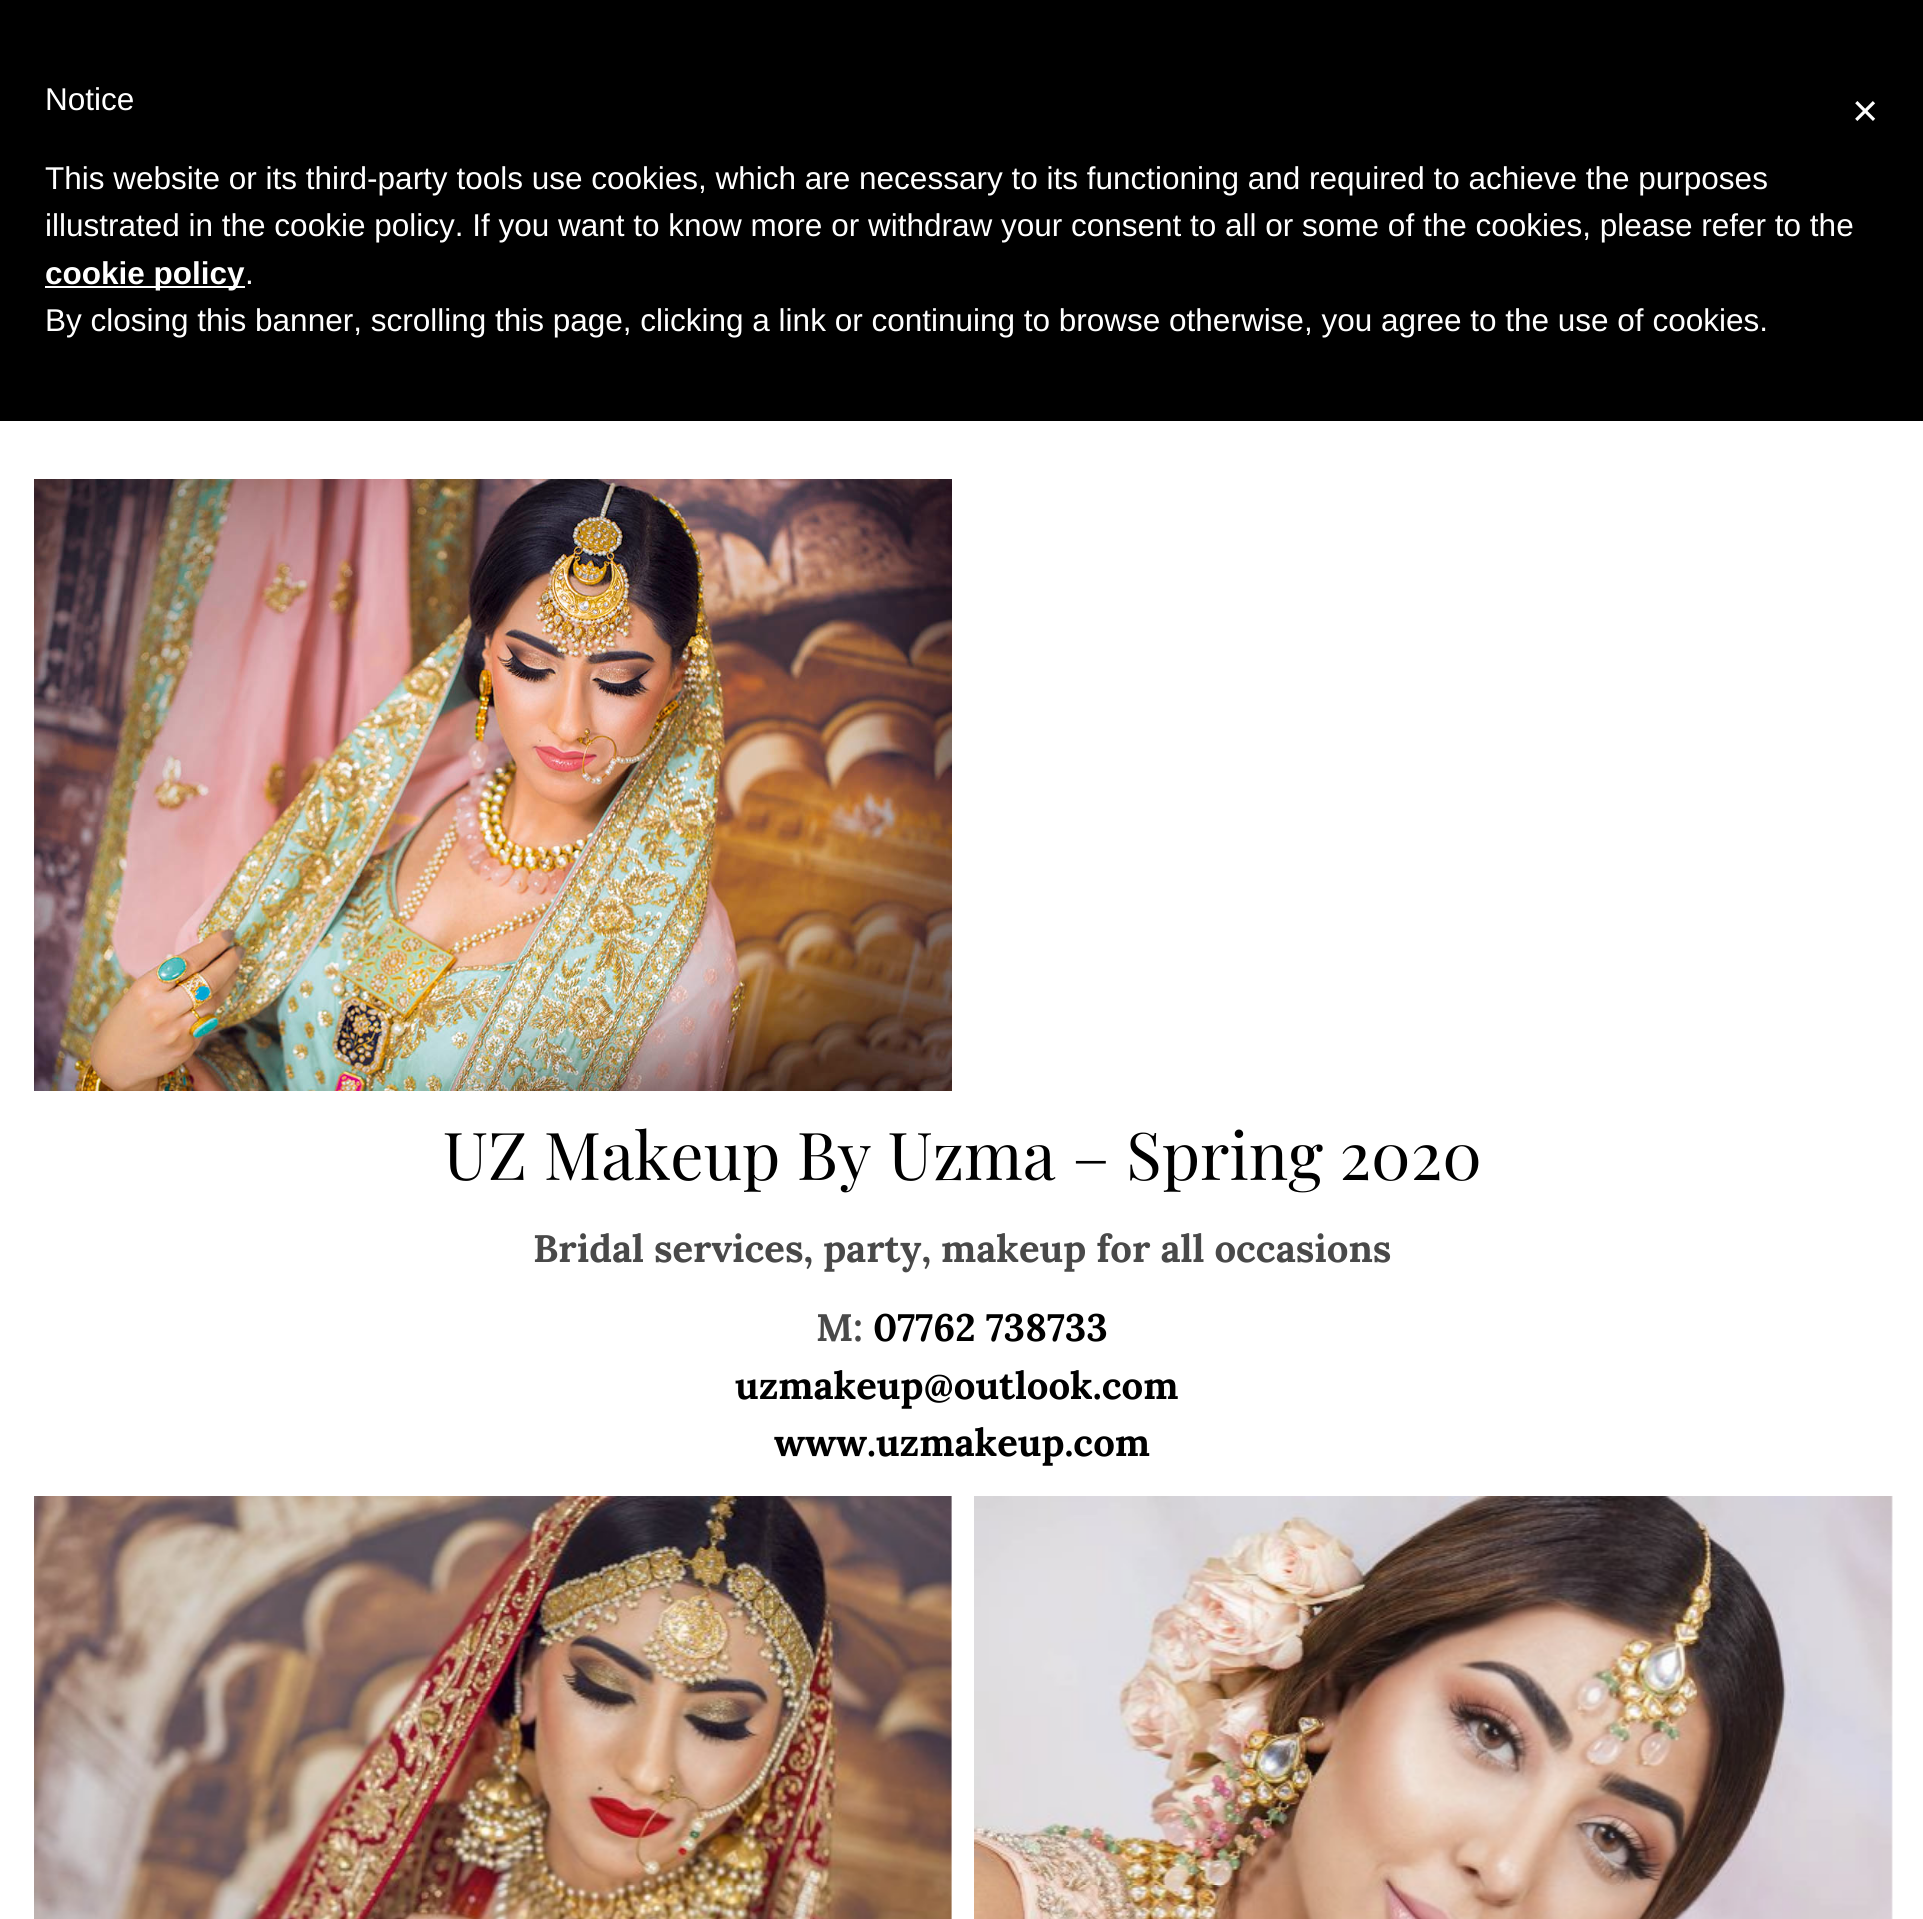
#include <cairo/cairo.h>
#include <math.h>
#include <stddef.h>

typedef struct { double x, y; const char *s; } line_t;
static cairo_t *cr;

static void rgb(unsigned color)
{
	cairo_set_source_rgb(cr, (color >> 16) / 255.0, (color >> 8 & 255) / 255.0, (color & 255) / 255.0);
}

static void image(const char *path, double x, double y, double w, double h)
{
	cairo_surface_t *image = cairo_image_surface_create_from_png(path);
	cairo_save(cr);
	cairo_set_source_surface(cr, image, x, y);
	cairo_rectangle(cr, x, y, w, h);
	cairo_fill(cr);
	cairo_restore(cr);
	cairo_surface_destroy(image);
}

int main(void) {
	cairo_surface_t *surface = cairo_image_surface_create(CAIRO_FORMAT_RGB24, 1923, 1919);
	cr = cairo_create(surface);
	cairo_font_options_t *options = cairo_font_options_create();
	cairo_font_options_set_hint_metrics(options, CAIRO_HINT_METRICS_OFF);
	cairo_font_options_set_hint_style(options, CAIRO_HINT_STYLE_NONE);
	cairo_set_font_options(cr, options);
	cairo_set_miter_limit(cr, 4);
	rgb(0xffffff);
	cairo_paint(cr);
	rgb(0x000000);
	cairo_rectangle(cr, 0, 0, 1923, 421);
	cairo_fill(cr);
	rgb(0xffffff);
	cairo_rectangle(cr, 45, 286, 200, 2);
	cairo_fill(cr);
	image("img/1.png", 34, 479, 918, 612);
	image("img/2.png", 34, 1496, 918, 423);
	image("img/3.png", 974, 1496, 919, 423);
	cairo_select_font_face(cr, "Liberation Sans", CAIRO_FONT_SLANT_NORMAL, CAIRO_FONT_WEIGHT_NORMAL);
	cairo_set_font_size(cr, 31.5);
	{
		static const line_t items[] = {
			{45, 110, "Notice"},
			{45, 189, "This website or its third-party tools use cookies, which are necessary to its functioning and required to achieve the purposes"},
			{45, 236, "illustrated in the cookie policy. If you want to know more or withdraw your consent to all or some of the cookies, please refer to the"},
		};
		for (size_t i = 0; i < sizeof items / sizeof *items; i++) {
			cairo_move_to(cr, items[i].x, items[i].y);
			cairo_show_text(cr, items[i].s);
		}
	}
	cairo_select_font_face(cr, "Liberation Sans", CAIRO_FONT_SLANT_NORMAL, CAIRO_FONT_WEIGHT_BOLD);
	cairo_move_to(cr, 45, 284);
	cairo_show_text(cr, "cookie policy");
	cairo_select_font_face(cr, "Liberation Sans", CAIRO_FONT_SLANT_NORMAL, CAIRO_FONT_WEIGHT_NORMAL);
	cairo_move_to(cr, 245, 284);
	cairo_show_text(cr, ".");
	cairo_move_to(cr, 45, 331);
	cairo_show_text(cr, "By closing this banner, scrolling this page, clicking a link or continuing to browse otherwise, you agree to the use of cookies.");
	cairo_set_font_size(cr, 45);
	cairo_move_to(cr, 1852, 126);
	cairo_show_text(cr, "×");
	cairo_select_font_face(cr, "Playfair Display", CAIRO_FONT_SLANT_NORMAL, CAIRO_FONT_WEIGHT_NORMAL);
	cairo_set_font_size(cr, 66);
	rgb(0x000000);
	cairo_move_to(cr, 443, 1180);
	cairo_show_text(cr, "UZ Makeup By Uzma – Spring 2020");
	cairo_select_font_face(cr, "Lora", CAIRO_FONT_SLANT_NORMAL, CAIRO_FONT_WEIGHT_BOLD);
	cairo_set_font_size(cr, 38.25);
	rgb(0x494949);
	cairo_move_to(cr, 533, 1262);
	cairo_show_text(cr, "Bridal services, party, makeup for all occasions");
	cairo_move_to(cr, 816, 1341);
	cairo_show_text(cr, "M:");
	rgb(0x000000);
	{
		static const line_t items[] = {
			{873, 1341, "07762 738733"},
			{735, 1399, "uzmakeup@outlook.com"},
			{774, 1456, "www.uzmakeup.com"},
		};
		for (size_t i = 0; i < sizeof items / sizeof *items; i++) {
			cairo_move_to(cr, items[i].x, items[i].y);
			cairo_show_text(cr, items[i].s);
		}
	}
	cairo_surface_write_to_png(surface, "page.png");
	cairo_font_options_destroy(options);
	cairo_destroy(cr);
	cairo_surface_destroy(surface);
	return 0;
}
